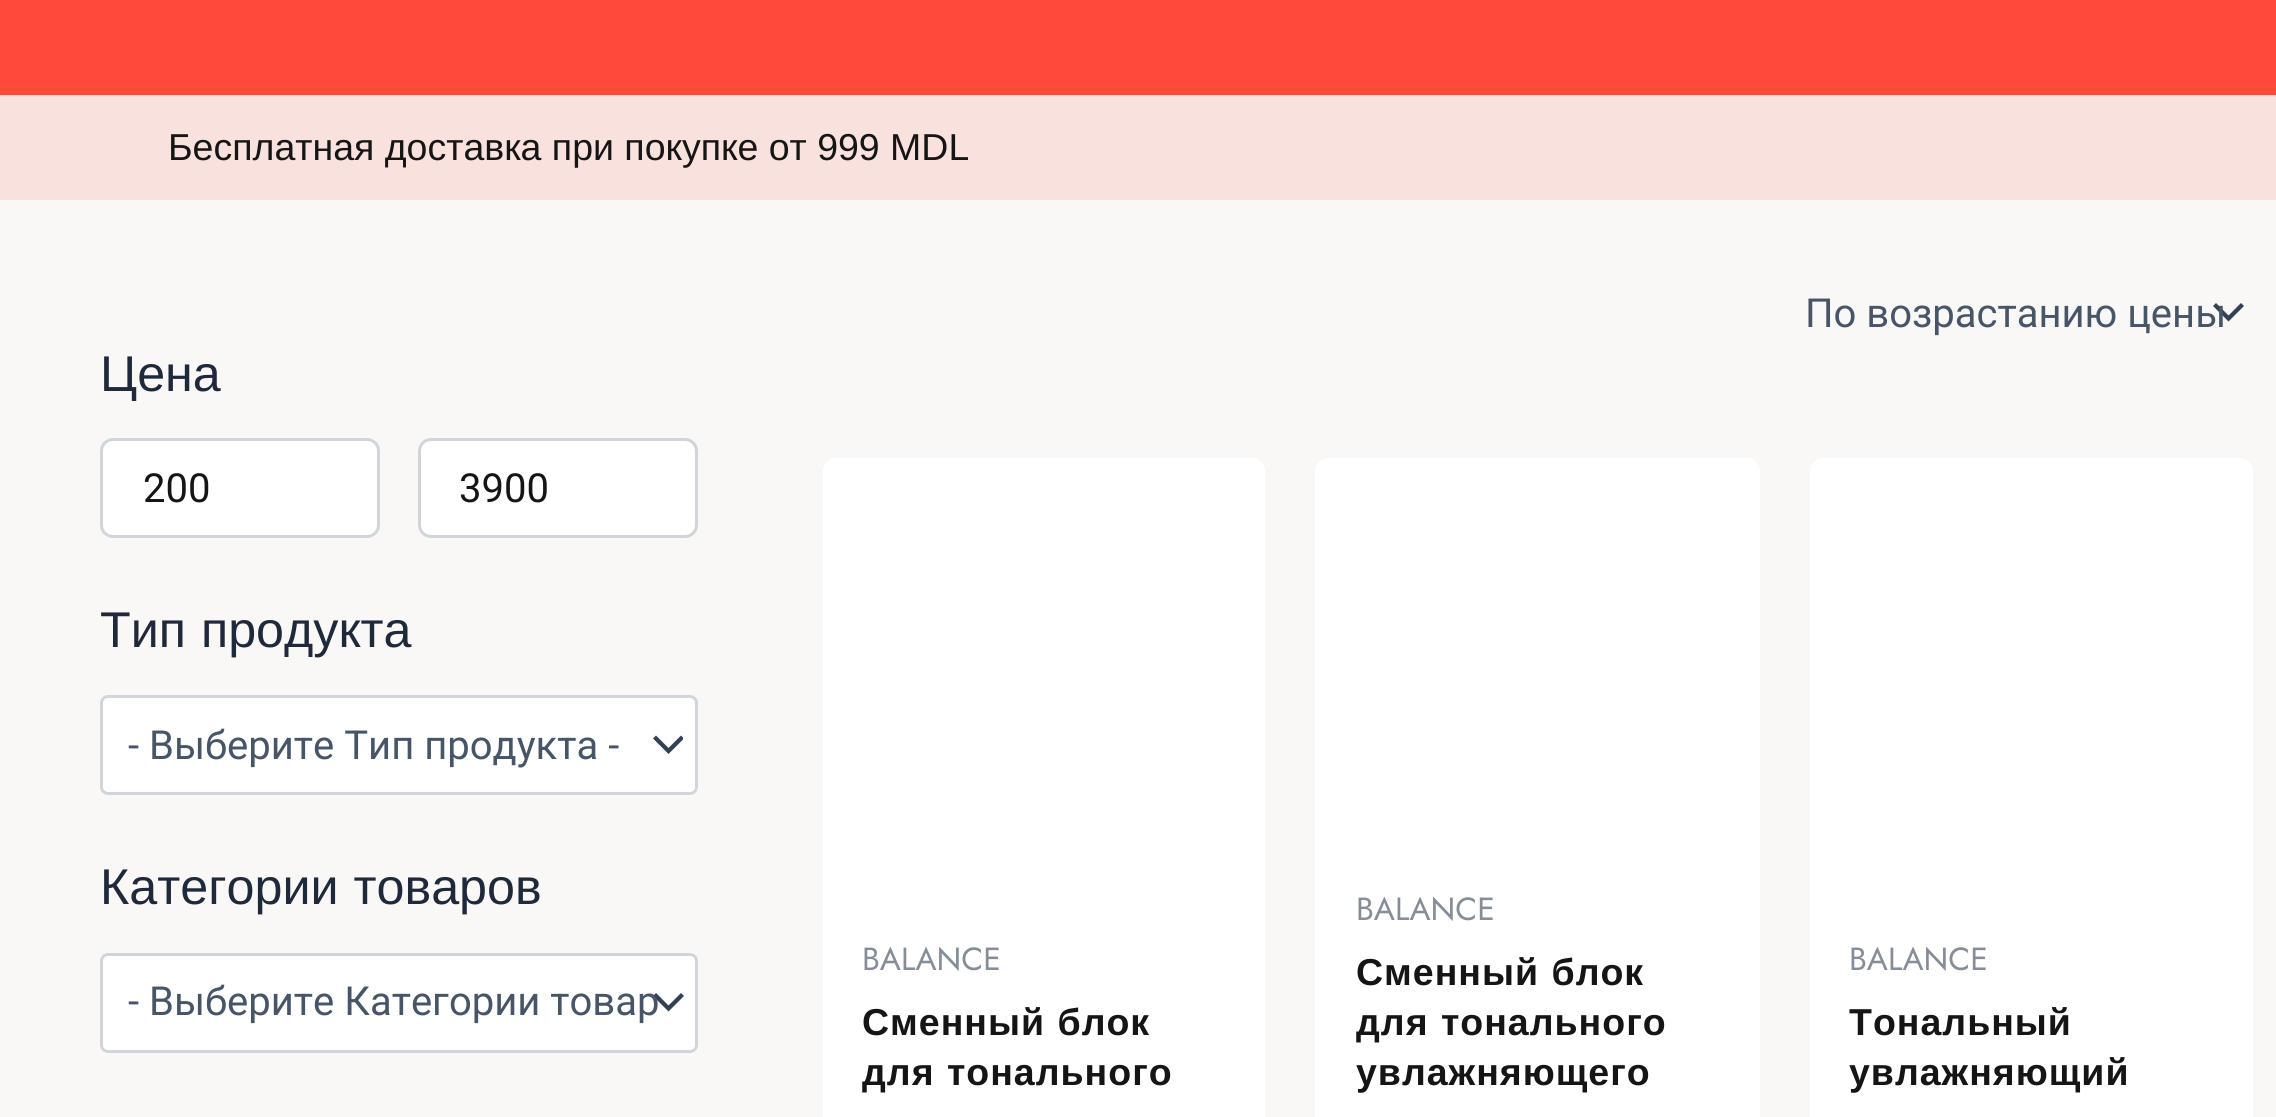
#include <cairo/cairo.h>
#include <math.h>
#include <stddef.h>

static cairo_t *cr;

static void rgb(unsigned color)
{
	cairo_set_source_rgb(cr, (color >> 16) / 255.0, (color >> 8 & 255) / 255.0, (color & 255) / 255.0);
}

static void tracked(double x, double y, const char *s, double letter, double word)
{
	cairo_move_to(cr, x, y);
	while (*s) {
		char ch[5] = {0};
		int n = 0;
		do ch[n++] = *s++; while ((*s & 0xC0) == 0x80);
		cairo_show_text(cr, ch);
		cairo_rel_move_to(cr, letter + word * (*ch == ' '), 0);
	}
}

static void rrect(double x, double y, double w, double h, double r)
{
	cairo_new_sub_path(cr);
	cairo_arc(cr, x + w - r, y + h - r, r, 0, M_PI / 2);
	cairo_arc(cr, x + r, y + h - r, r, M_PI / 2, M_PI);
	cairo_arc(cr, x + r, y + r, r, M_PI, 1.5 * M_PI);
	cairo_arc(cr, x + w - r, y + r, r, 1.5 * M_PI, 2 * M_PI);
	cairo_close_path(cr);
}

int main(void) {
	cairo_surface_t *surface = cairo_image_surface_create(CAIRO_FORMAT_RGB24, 2276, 1117);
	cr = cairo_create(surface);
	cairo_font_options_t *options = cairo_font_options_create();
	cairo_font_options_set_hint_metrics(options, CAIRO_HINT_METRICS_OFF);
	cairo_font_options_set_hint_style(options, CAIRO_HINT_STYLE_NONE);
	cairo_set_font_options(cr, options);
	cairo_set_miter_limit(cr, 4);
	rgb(0xf9f8f6);
	cairo_paint(cr);
	rgb(0xff493b);
	cairo_rectangle(cr, 0, 0, 2276, 95);
	cairo_fill(cr);
	rgb(0xf9e1de);
	cairo_rectangle(cr, 0, 95, 2276, 105);
	cairo_fill(cr);
	rgb(0xffffff);
	rrect(101.5, 439.5, 277, 97, 11.5);
	cairo_fill_preserve(cr);
	rgb(0xd1d5db);
	cairo_set_line_width(cr, 3);
	cairo_stroke(cr);
	rgb(0xffffff);
	rrect(419.5, 439.5, 277, 97, 11.5);
	cairo_fill_preserve(cr);
	rgb(0xd1d5db);
	cairo_stroke(cr);
	rgb(0xffffff);
	rrect(100, 695, 598, 100, 8);
	cairo_fill(cr);
	cairo_save(cr);
	cairo_rectangle(cr, 653, 735, 30, 20);
	cairo_clip(cr);
	rgb(0x334155);
	cairo_new_path(cr);
	cairo_move_to(cr, 653, 738.5);
	cairo_line_to(cr, 668.5, 754);
	cairo_line_to(cr, 684, 738.5);
	cairo_line_to(cr, 681, 735.5);
	cairo_line_to(cr, 668.5, 748);
	cairo_line_to(cr, 656, 735.5);
	cairo_close_path(cr);
	cairo_fill(cr);
	cairo_restore(cr);
	rrect(101.5, 696.5, 595, 97, 6.5);
	rgb(0xd1d5db);
	cairo_stroke(cr);
	rgb(0xffffff);
	rrect(100, 953, 598, 100, 8);
	cairo_fill(cr);
	rgb(0x334155);
	cairo_new_path(cr);
	cairo_move_to(cr, 653, 996);
	cairo_line_to(cr, 668.5, 1011.5);
	cairo_line_to(cr, 684, 996);
	cairo_line_to(cr, 681, 993);
	cairo_line_to(cr, 668.5, 1005.5);
	cairo_line_to(cr, 656, 993);
	cairo_close_path(cr);
	cairo_fill(cr);
	rrect(101.5, 954.5, 595, 97, 6.5);
	rgb(0xd1d5db);
	cairo_stroke(cr);
	rgb(0x334155);
	cairo_new_path(cr);
	cairo_move_to(cr, 2213, 306);
	cairo_line_to(cr, 2228.5, 321.5);
	cairo_line_to(cr, 2244, 306);
	cairo_line_to(cr, 2241, 303);
	cairo_line_to(cr, 2228.5, 315.5);
	cairo_line_to(cr, 2216, 303);
	cairo_close_path(cr);
	cairo_fill(cr);
	rgb(0xffffff);
	rrect(823, 458, 442, 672, 13);
	cairo_fill(cr);
	rrect(1315, 458, 445, 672, 13);
	cairo_fill(cr);
	rrect(1810, 458, 443, 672, 13);
	cairo_fill(cr);
	cairo_select_font_face(cr, "Liberation Sans", CAIRO_FONT_SLANT_NORMAL, CAIRO_FONT_WEIGHT_NORMAL);
	cairo_set_font_size(cr, 37.5);
	rgb(0x151515);
	cairo_move_to(cr, 168, 160);
	cairo_show_text(cr, "Бесплатная доставка при покупке от 999 MDL");
	cairo_set_font_size(cr, 50.25);
	rgb(0x1e293b);
	cairo_move_to(cr, 100, 391);
	cairo_show_text(cr, "Цена");
	cairo_select_font_face(cr, "Roboto", CAIRO_FONT_SLANT_NORMAL, CAIRO_FONT_WEIGHT_NORMAL);
	cairo_set_font_size(cr, 40);
	rgb(0x151515);
	cairo_move_to(cr, 143, 502);
	cairo_show_text(cr, "200");
	cairo_move_to(cr, 459, 502);
	cairo_show_text(cr, "3900");
	cairo_select_font_face(cr, "Liberation Sans", CAIRO_FONT_SLANT_NORMAL, CAIRO_FONT_WEIGHT_NORMAL);
	cairo_set_font_size(cr, 50.25);
	rgb(0x1e293b);
	tracked(100, 647, "Тип продукта", 0, 1);
	cairo_select_font_face(cr, "Roboto", CAIRO_FONT_SLANT_NORMAL, CAIRO_FONT_WEIGHT_NORMAL);
	cairo_set_font_size(cr, 40);
	rgb(0x475569);
	cairo_move_to(cr, 128, 759);
	cairo_show_text(cr, "- Выберите Тип продукта -");
	cairo_select_font_face(cr, "Liberation Sans", CAIRO_FONT_SLANT_NORMAL, CAIRO_FONT_WEIGHT_NORMAL);
	cairo_set_font_size(cr, 50.25);
	rgb(0x1e293b);
	tracked(100, 904, "Категории товаров", 0, 1);
	cairo_select_font_face(cr, "Roboto", CAIRO_FONT_SLANT_NORMAL, CAIRO_FONT_WEIGHT_NORMAL);
	cairo_set_font_size(cr, 40);
	rgb(0x475569);
	cairo_move_to(cr, 128, 1015);
	cairo_show_text(cr, "- Выберите Категории товар");
	cairo_move_to(cr, 1805, 327);
	cairo_show_text(cr, "По возрастанию цены");
	cairo_select_font_face(cr, "Jost", CAIRO_FONT_SLANT_NORMAL, CAIRO_FONT_WEIGHT_NORMAL);
	cairo_set_font_size(cr, 32);
	rgb(0x858d99);
	cairo_move_to(cr, 862, 970);
	cairo_show_text(cr, "BALANCE");
	cairo_select_font_face(cr, "Liberation Sans", CAIRO_FONT_SLANT_NORMAL, CAIRO_FONT_WEIGHT_BOLD);
	cairo_set_font_size(cr, 37.5);
	rgb(0x151515);
	tracked(862, 1035, "Сменный блок", 1, 1);
	tracked(862, 1085, "для тонального", 1, 1);
	cairo_select_font_face(cr, "Jost", CAIRO_FONT_SLANT_NORMAL, CAIRO_FONT_WEIGHT_NORMAL);
	cairo_set_font_size(cr, 32);
	rgb(0x858d99);
	cairo_move_to(cr, 1356, 920);
	cairo_show_text(cr, "BALANCE");
	cairo_select_font_face(cr, "Liberation Sans", CAIRO_FONT_SLANT_NORMAL, CAIRO_FONT_WEIGHT_BOLD);
	cairo_set_font_size(cr, 37.5);
	rgb(0x151515);
	tracked(1356, 985, "Сменный блок", 1, 1);
	tracked(1356, 1035, "для тонального", 1, 1);
	tracked(1356, 1085, "увлажняющего", 1, 0);
	cairo_select_font_face(cr, "Jost", CAIRO_FONT_SLANT_NORMAL, CAIRO_FONT_WEIGHT_NORMAL);
	cairo_set_font_size(cr, 32);
	rgb(0x858d99);
	cairo_move_to(cr, 1849, 970);
	cairo_show_text(cr, "BALANCE");
	cairo_select_font_face(cr, "Liberation Sans", CAIRO_FONT_SLANT_NORMAL, CAIRO_FONT_WEIGHT_BOLD);
	cairo_set_font_size(cr, 37.5);
	rgb(0x151515);
	tracked(1849, 1035, "Тональный", 1, 0);
	tracked(1849, 1085, "увлажняющий", 1, 0);
	cairo_surface_write_to_png(surface, "page.png");
	cairo_font_options_destroy(options);
	cairo_destroy(cr);
	cairo_surface_destroy(surface);
	return 0;
}
